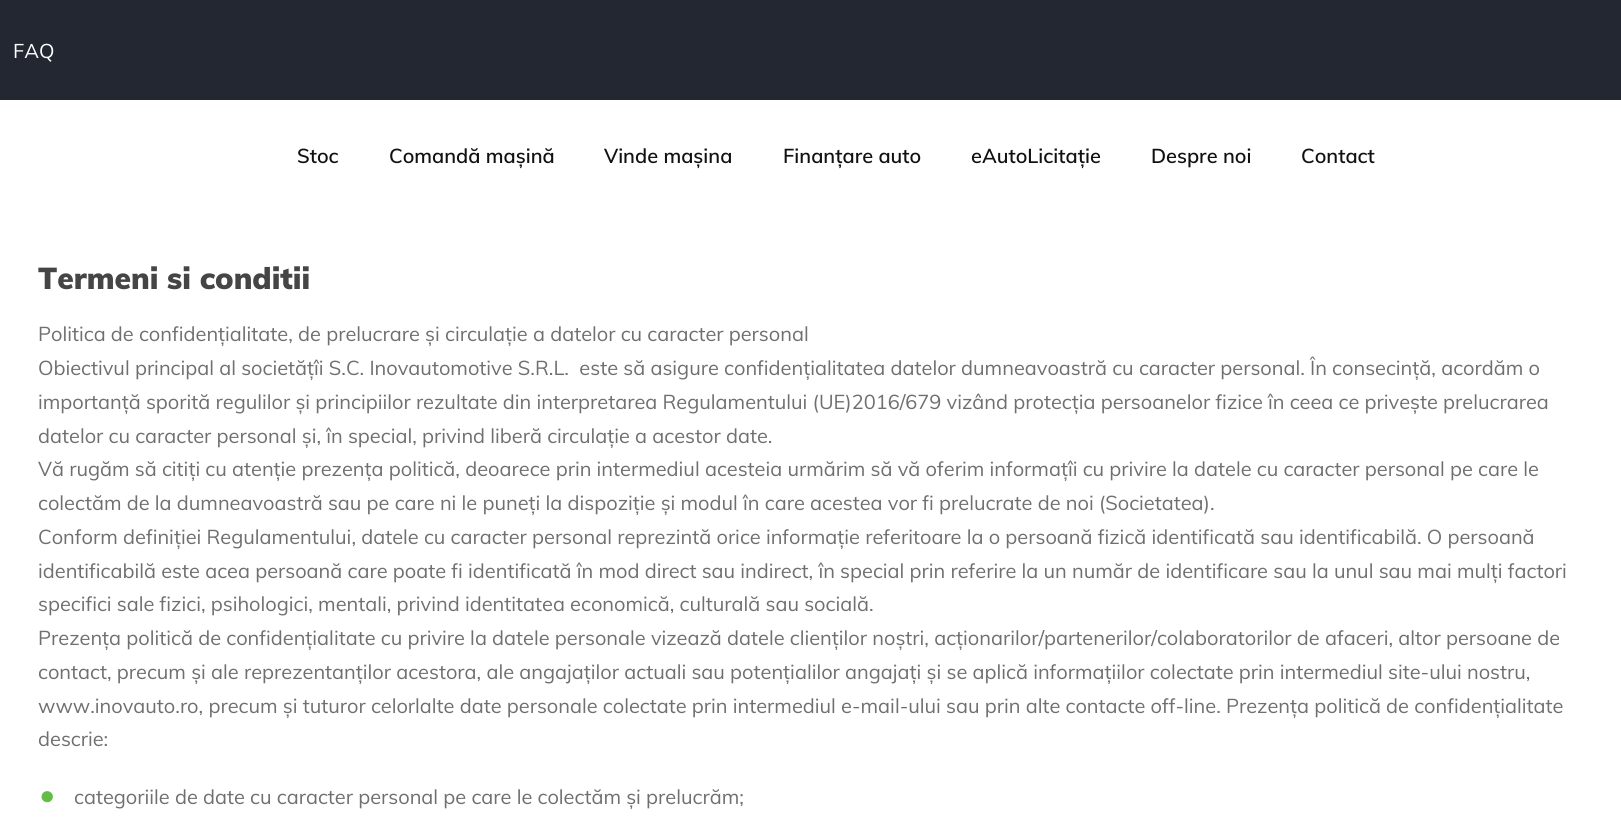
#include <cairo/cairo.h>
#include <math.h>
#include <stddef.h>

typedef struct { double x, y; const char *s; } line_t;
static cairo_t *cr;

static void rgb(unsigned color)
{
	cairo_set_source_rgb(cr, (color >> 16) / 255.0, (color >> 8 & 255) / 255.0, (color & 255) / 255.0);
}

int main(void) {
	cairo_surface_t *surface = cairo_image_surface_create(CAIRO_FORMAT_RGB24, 1621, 838);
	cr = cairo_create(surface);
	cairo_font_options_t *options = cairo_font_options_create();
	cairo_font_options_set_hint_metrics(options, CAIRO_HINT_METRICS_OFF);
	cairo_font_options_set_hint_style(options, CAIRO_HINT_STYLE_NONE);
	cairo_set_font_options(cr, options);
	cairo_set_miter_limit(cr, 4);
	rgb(0xffffff);
	cairo_paint(cr);
	rgb(0x222732);
	cairo_rectangle(cr, 0, 0, 1621, 100);
	cairo_fill(cr);
	cairo_select_font_face(cr, "Mulish", CAIRO_FONT_SLANT_NORMAL, CAIRO_FONT_WEIGHT_NORMAL);
	cairo_set_font_size(cr, 20);
	rgb(0xffffff);
	cairo_move_to(cr, 13, 58);
	cairo_show_text(cr, "FAQ");
	cairo_select_font_face(cr, "Muli SemiBold", CAIRO_FONT_SLANT_NORMAL, CAIRO_FONT_WEIGHT_NORMAL);
	rgb(0x111111);
	{
		static const line_t items[] = {
			{297, 163, "Stoc"},
			{389, 163, "Comandă mașină"},
			{604, 163, "Vinde mașina"},
			{783, 163, "Finanțare auto"},
			{971, 163, "eAutoLicitație"},
			{1151, 163, "Despre noi"},
			{1301, 163, "Contact"},
		};
		for (size_t i = 0; i < sizeof items / sizeof *items; i++) {
			cairo_move_to(cr, items[i].x, items[i].y);
			cairo_show_text(cr, items[i].s);
		}
	}
	cairo_select_font_face(cr, "Muli Black", CAIRO_FONT_SLANT_NORMAL, CAIRO_FONT_WEIGHT_NORMAL);
	cairo_set_font_size(cr, 30);
	rgb(0x464545);
	cairo_move_to(cr, 38, 289);
	cairo_show_text(cr, "Termeni si conditii");
	cairo_select_font_face(cr, "Muli", CAIRO_FONT_SLANT_NORMAL, CAIRO_FONT_WEIGHT_NORMAL);
	cairo_set_font_size(cr, 20);
	rgb(0x6f6f6f);
	{
		static const line_t items[] = {
			{38, 341, "Politica de confidențialitate, de prelucrare și circulație a datelor cu caracter personal"},
			{38, 375, "Obiectivul principal al societățîi S.C. Inovautomotive S.R.L.  este să asigure confidențialitatea datelor dumneavoastră cu caracter personal. În consecință, acordăm o"},
			{38, 409, "importanță sporită regulilor și principiilor rezultate din interpretarea Regulamentului (UE)2016/679 vizând protecția persoanelor fizice în ceea ce privește prelucrarea"},
			{38, 443, "datelor cu caracter personal și, în special, privind liberă circulație a acestor date."},
			{38, 476, "Vă rugăm să citiți cu atenție prezența politică, deoarece prin intermediul acesteia urmărim să vă oferim informațîi cu privire la datele cu caracter personal pe care le"},
			{38, 510, "colectăm de la dumneavoastră sau pe care ni le puneți la dispoziție și modul în care acestea vor fi prelucrate de noi (Societatea)."},
			{38, 544, "Conform definiției Regulamentului, datele cu caracter personal reprezintă orice informație referitoare la o persoană fizică identificată sau identificabilă. O persoană"},
			{38, 578, "identificabilă este acea persoană care poate fi identificată în mod direct sau indirect, în special prin referire la un număr de identificare sau la unul sau mai mulți factori"},
			{38, 611, "specifici sale fizici, psihologici, mentali, privind identitatea economică, culturală sau socială."},
			{38, 645, "Prezența politică de confidențialitate cu privire la datele personale vizează datele clienților noștri, acționarilor/partenerilor/colaboratorilor de afaceri, altor persoane de"},
			{38, 679, "contact, precum și ale reprezentanților acestora, ale angajaților actuali sau potențialilor angajați și se aplică informațiilor colectate prin intermediul site-ului nostru,"},
			{38, 713, "www.inovauto.ro, precum și tuturor celorlalte date personale colectate prin intermediul e-mail-ului sau prin alte contacte off-line. Prezența politică de confidențialitate"},
			{38, 746, "descrie:"},
		};
		for (size_t i = 0; i < sizeof items / sizeof *items; i++) {
			cairo_move_to(cr, items[i].x, items[i].y);
			cairo_show_text(cr, items[i].s);
		}
	}
	cairo_select_font_face(cr, "Muli", CAIRO_FONT_SLANT_NORMAL, CAIRO_FONT_WEIGHT_BOLD);
	cairo_set_font_size(cr, 31);
	rgb(0x64bc46);
	cairo_move_to(cr, 39, 805);
	cairo_show_text(cr, "•");
	cairo_select_font_face(cr, "Muli", CAIRO_FONT_SLANT_NORMAL, CAIRO_FONT_WEIGHT_NORMAL);
	cairo_set_font_size(cr, 20);
	rgb(0x6f6f6f);
	cairo_move_to(cr, 74, 804);
	cairo_show_text(cr, "categoriile de date cu caracter personal pe care le colectăm și prelucrăm;");
	cairo_surface_write_to_png(surface, "page.png");
	cairo_font_options_destroy(options);
	cairo_destroy(cr);
	cairo_surface_destroy(surface);
	return 0;
}
